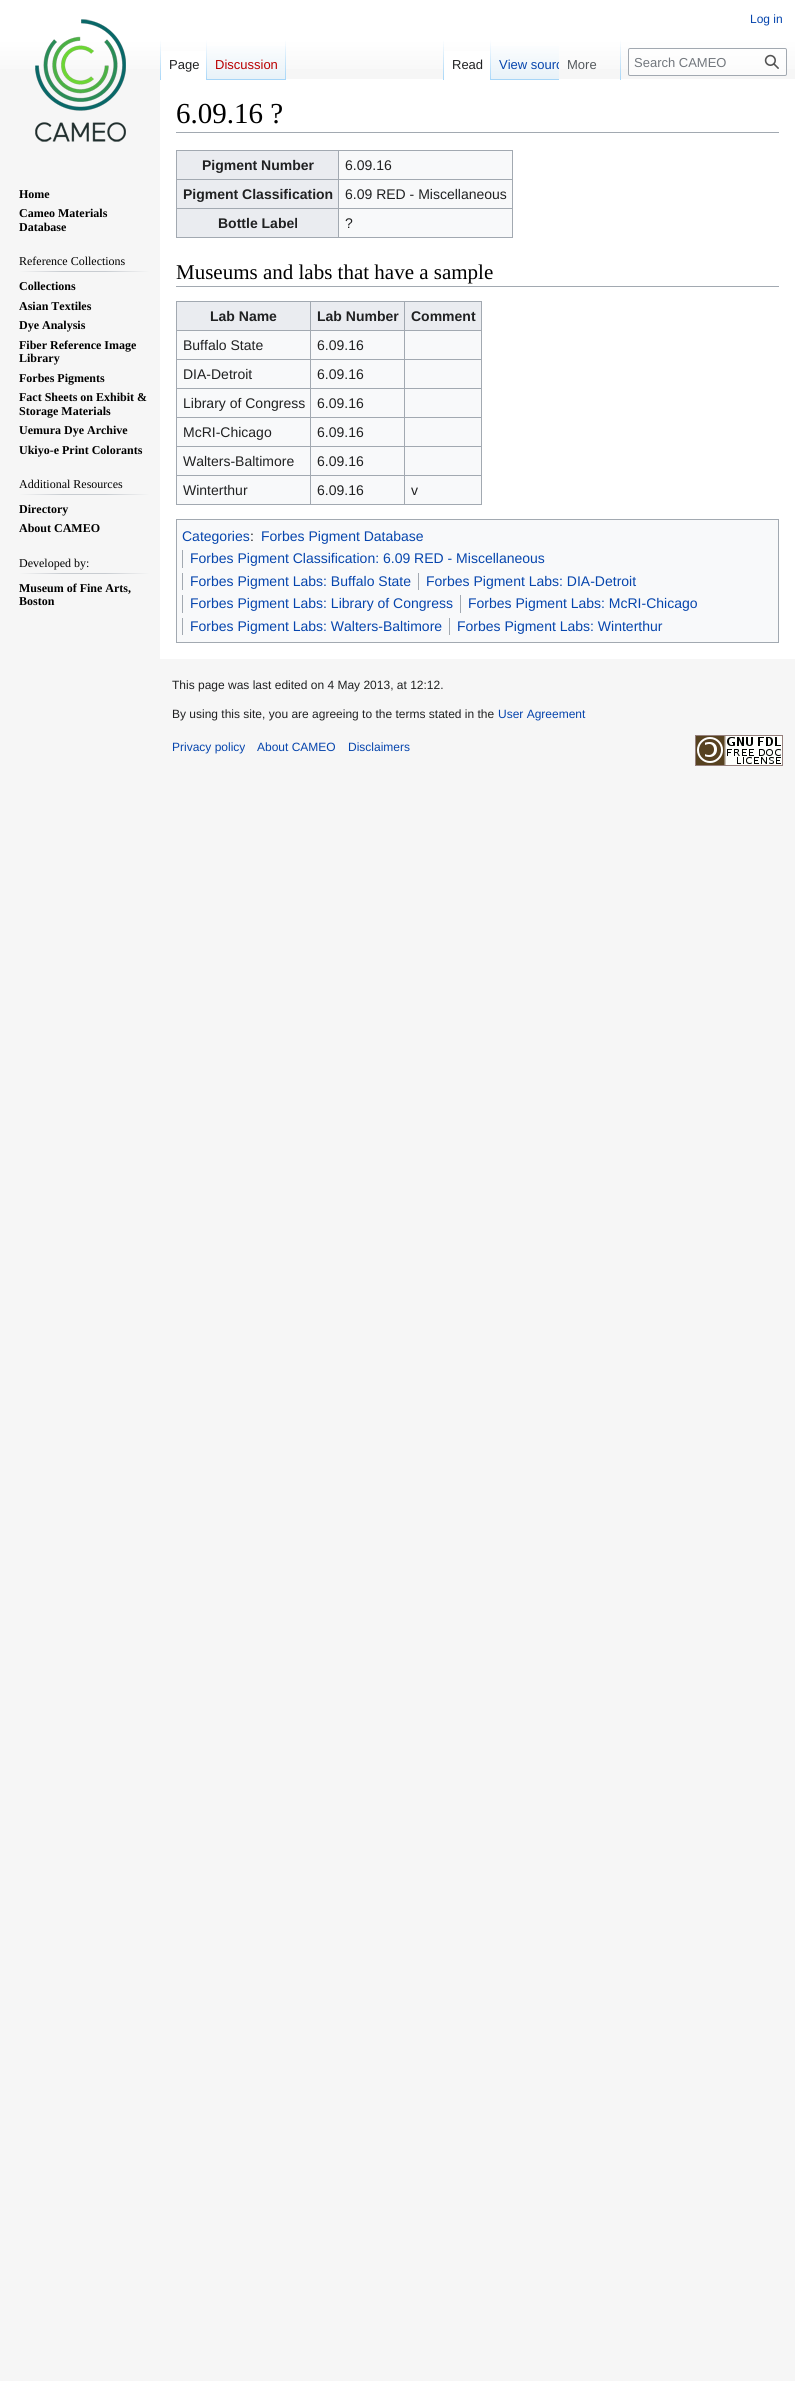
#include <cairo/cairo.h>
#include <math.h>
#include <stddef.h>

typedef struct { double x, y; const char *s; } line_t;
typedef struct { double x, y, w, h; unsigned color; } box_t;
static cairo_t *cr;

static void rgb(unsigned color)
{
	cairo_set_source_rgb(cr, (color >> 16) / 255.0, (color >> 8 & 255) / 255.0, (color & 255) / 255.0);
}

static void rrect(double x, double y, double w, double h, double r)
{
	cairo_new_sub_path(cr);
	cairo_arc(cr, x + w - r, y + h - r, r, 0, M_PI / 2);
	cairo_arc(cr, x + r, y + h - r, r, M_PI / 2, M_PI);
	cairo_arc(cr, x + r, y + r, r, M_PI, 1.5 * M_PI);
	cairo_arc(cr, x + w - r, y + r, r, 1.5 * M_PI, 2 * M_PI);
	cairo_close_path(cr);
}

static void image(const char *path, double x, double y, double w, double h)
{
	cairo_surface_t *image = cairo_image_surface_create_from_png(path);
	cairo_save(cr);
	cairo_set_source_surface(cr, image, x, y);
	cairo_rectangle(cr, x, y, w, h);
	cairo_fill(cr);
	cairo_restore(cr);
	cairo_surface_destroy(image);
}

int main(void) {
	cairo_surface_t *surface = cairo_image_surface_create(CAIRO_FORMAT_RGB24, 795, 2381);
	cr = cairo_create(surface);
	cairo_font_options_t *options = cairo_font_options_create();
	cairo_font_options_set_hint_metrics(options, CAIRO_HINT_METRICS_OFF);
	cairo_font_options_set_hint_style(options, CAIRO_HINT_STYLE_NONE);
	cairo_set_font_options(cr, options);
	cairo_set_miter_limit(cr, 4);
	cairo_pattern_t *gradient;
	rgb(0xf6f6f6);
	cairo_paint(cr);
	gradient = cairo_pattern_create_linear(398, 0, 398, 80);
	cairo_pattern_add_color_stop_rgba(gradient, 0.5, 1, 1, 1, 1);
	cairo_pattern_add_color_stop_rgba(gradient, 1, 0.965, 0.965, 0.965, 1);
	cairo_set_source(cr, gradient);
	cairo_pattern_destroy(gradient);
	cairo_rectangle(cr, 0, 0, 795, 69);
	cairo_fill(cr);
	rgb(0xffffff);
	cairo_rectangle(cr, 160, 79, 635, 580);
	cairo_fill(cr);
	gradient = cairo_pattern_create_linear(161, 40, 161, 80);
	cairo_pattern_add_color_stop_rgba(gradient, 0, 0.655, 0.843, 0.976, 0);
	cairo_pattern_add_color_stop_rgba(gradient, 1, 0.655, 0.843, 0.976, 1);
	cairo_set_source(cr, gradient);
	cairo_pattern_destroy(gradient);
	cairo_rectangle(cr, 160, 40, 1, 40);
	cairo_fill(cr);
	rgb(0xffffff);
	cairo_rectangle(cr, 161, 51, 45, 28);
	cairo_fill(cr);
	gradient = cairo_pattern_create_linear(207, 40, 207, 80);
	cairo_pattern_add_color_stop_rgba(gradient, 0, 1, 1, 1, 1);
	cairo_pattern_add_color_stop_rgba(gradient, 1, 0.655, 0.843, 0.976, 1);
	cairo_set_source(cr, gradient);
	cairo_pattern_destroy(gradient);
	cairo_rectangle(cr, 206, 40, 1, 40);
	cairo_fill(cr);
	gradient = cairo_pattern_create_linear(247, 80, 247, 40);
	cairo_pattern_add_color_stop_rgba(gradient, 0, 0.467, 0.757, 0.965, 1);
	cairo_pattern_add_color_stop_rgba(gradient, 0.03, 0.91, 0.949, 0.973, 1);
	cairo_pattern_add_color_stop_rgba(gradient, 1, 1, 1, 1, 1);
	cairo_set_source(cr, gradient);
	cairo_pattern_destroy(gradient);
	cairo_rectangle(cr, 207, 46, 79, 34);
	cairo_fill(cr);
	gradient = cairo_pattern_create_linear(286, 40, 286, 80);
	cairo_pattern_add_color_stop_rgba(gradient, 0, 0.655, 0.843, 0.976, 0);
	cairo_pattern_add_color_stop_rgba(gradient, 1, 0.655, 0.843, 0.976, 1);
	cairo_set_source(cr, gradient);
	cairo_pattern_destroy(gradient);
	cairo_rectangle(cr, 285, 40, 1, 40);
	cairo_fill(cr);
	gradient = cairo_pattern_create_linear(444, 40, 444, 80);
	cairo_pattern_add_color_stop_rgba(gradient, 0, 0.655, 0.843, 0.976, 0);
	cairo_pattern_add_color_stop_rgba(gradient, 1, 0.655, 0.843, 0.976, 1);
	cairo_set_source(cr, gradient);
	cairo_pattern_destroy(gradient);
	cairo_rectangle(cr, 443, 40, 1, 40);
	cairo_fill(cr);
	rgb(0xffffff);
	cairo_rectangle(cr, 444, 51, 46, 28);
	cairo_fill(cr);
	gradient = cairo_pattern_create_linear(491, 40, 491, 80);
	cairo_pattern_add_color_stop_rgba(gradient, 0, 1, 1, 1, 1);
	cairo_pattern_add_color_stop_rgba(gradient, 1, 0.655, 0.843, 0.976, 1);
	cairo_set_source(cr, gradient);
	cairo_pattern_destroy(gradient);
	cairo_rectangle(cr, 490, 40, 1, 40);
	cairo_fill(cr);
	gradient = cairo_pattern_create_linear(525, 80, 525, 40);
	cairo_pattern_add_color_stop_rgba(gradient, 0, 0.467, 0.757, 0.965, 1);
	cairo_pattern_add_color_stop_rgba(gradient, 0.03, 0.91, 0.949, 0.973, 1);
	cairo_pattern_add_color_stop_rgba(gradient, 1, 1, 1, 1, 1);
	cairo_set_source(cr, gradient);
	cairo_pattern_destroy(gradient);
	cairo_rectangle(cr, 491, 46, 68, 34);
	cairo_fill(cr);
	gradient = cairo_pattern_create_linear(621, 40, 621, 80);
	cairo_pattern_add_color_stop_rgba(gradient, 0, 0.655, 0.843, 0.976, 0);
	cairo_pattern_add_color_stop_rgba(gradient, 1, 0.655, 0.843, 0.976, 1);
	cairo_set_source(cr, gradient);
	cairo_pattern_destroy(gradient);
	cairo_rectangle(cr, 620, 40, 1, 40);
	cairo_fill(cr);
	cairo_set_source_rgba(cr, 1, 1, 1, 0.5);
	rrect(628.5, 48.5, 158, 27, 1.5);
	cairo_fill_preserve(cr);
	rgb(0xa2a9b1);
	cairo_set_line_width(cr, 1);
	cairo_stroke(cr);
	image("img/1.png", 764, 54, 15, 15);
	image("img/2.png", 35, 19, 91, 123);
	gradient = cairo_pattern_create_linear(19, 272, 150, 272);
	cairo_pattern_add_color_stop_rgba(gradient, 0, 0.965, 0.965, 0.965, 1);
	cairo_pattern_add_color_stop_rgba(gradient, 0.33, 0.784, 0.8, 0.82, 1);
	cairo_pattern_add_color_stop_rgba(gradient, 0.66, 0.784, 0.8, 0.82, 1);
	cairo_pattern_add_color_stop_rgba(gradient, 1, 0.965, 0.965, 0.965, 1);
	cairo_set_source(cr, gradient);
	cairo_pattern_destroy(gradient);
	cairo_rectangle(cr, 19, 271, 131, 1);
	cairo_fill(cr);
	gradient = cairo_pattern_create_linear(19, 495, 150, 495);
	cairo_pattern_add_color_stop_rgba(gradient, 0, 0.965, 0.965, 0.965, 1);
	cairo_pattern_add_color_stop_rgba(gradient, 0.33, 0.784, 0.8, 0.82, 1);
	cairo_pattern_add_color_stop_rgba(gradient, 0.66, 0.784, 0.8, 0.82, 1);
	cairo_pattern_add_color_stop_rgba(gradient, 1, 0.965, 0.965, 0.965, 1);
	cairo_set_source(cr, gradient);
	cairo_pattern_destroy(gradient);
	cairo_rectangle(cr, 19, 494, 131, 1);
	cairo_fill(cr);
	gradient = cairo_pattern_create_linear(19, 574, 150, 574);
	cairo_pattern_add_color_stop_rgba(gradient, 0, 0.965, 0.965, 0.965, 1);
	cairo_pattern_add_color_stop_rgba(gradient, 0.33, 0.784, 0.8, 0.82, 1);
	cairo_pattern_add_color_stop_rgba(gradient, 0.66, 0.784, 0.8, 0.82, 1);
	cairo_pattern_add_color_stop_rgba(gradient, 1, 0.965, 0.965, 0.965, 1);
	cairo_set_source(cr, gradient);
	cairo_pattern_destroy(gradient);
	cairo_rectangle(cr, 19, 573, 131, 1);
	cairo_fill(cr);
	{
		static const box_t items[] = {
			{176, 132, 603, 1, 0xa2a9b1},
			{339, 151, 173, 86, 0xf8f9fa},
			{176, 150, 337, 1, 0xa2a9b1},
			{512, 150, 1, 88, 0xa2a9b1},
			{176, 237, 337, 1, 0xa2a9b1},
			{176, 150, 1, 88, 0xa2a9b1},
			{177, 151, 161, 28, 0xeaecf0},
			{338, 179, 175, 1, 0xa2a9b1},
			{338, 208, 175, 1, 0xa2a9b1},
			{338, 208, 1, 30, 0xa2a9b1},
			{176, 208, 163, 1, 0xa2a9b1},
			{338, 179, 1, 30, 0xa2a9b1},
			{176, 179, 163, 1, 0xa2a9b1},
			{338, 150, 1, 30, 0xa2a9b1},
			{177, 180, 161, 28, 0xeaecf0},
			{177, 209, 161, 28, 0xeaecf0},
			{176, 286, 603, 1, 0xa2a9b1},
			{177, 331, 304, 173, 0xf8f9fa},
			{176, 301, 306, 1, 0xa2a9b1},
			{481, 301, 1, 204, 0xa2a9b1},
			{176, 504, 306, 1, 0xa2a9b1},
			{176, 301, 1, 204, 0xa2a9b1},
			{177, 302, 133, 28, 0xeaecf0},
			{311, 302, 93, 28, 0xeaecf0},
			{404, 330, 78, 1, 0xa2a9b1},
			{404, 359, 78, 1, 0xa2a9b1},
			{404, 388, 78, 1, 0xa2a9b1},
			{404, 417, 78, 1, 0xa2a9b1},
			{404, 446, 78, 1, 0xa2a9b1},
			{404, 475, 78, 1, 0xa2a9b1},
			{404, 475, 1, 30, 0xa2a9b1},
			{310, 475, 95, 1, 0xa2a9b1},
			{404, 446, 1, 30, 0xa2a9b1},
			{310, 446, 95, 1, 0xa2a9b1},
			{404, 417, 1, 30, 0xa2a9b1},
			{310, 417, 95, 1, 0xa2a9b1},
			{404, 388, 1, 30, 0xa2a9b1},
			{310, 388, 95, 1, 0xa2a9b1},
			{404, 359, 1, 30, 0xa2a9b1},
			{310, 359, 95, 1, 0xa2a9b1},
			{404, 330, 1, 30, 0xa2a9b1},
			{310, 330, 95, 1, 0xa2a9b1},
			{310, 475, 1, 30, 0xa2a9b1},
			{176, 475, 135, 1, 0xa2a9b1},
			{310, 446, 1, 30, 0xa2a9b1},
			{176, 446, 135, 1, 0xa2a9b1},
			{310, 417, 1, 30, 0xa2a9b1},
			{176, 417, 135, 1, 0xa2a9b1},
			{310, 388, 1, 30, 0xa2a9b1},
			{176, 388, 135, 1, 0xa2a9b1},
			{310, 359, 1, 30, 0xa2a9b1},
			{176, 359, 135, 1, 0xa2a9b1},
			{310, 330, 1, 30, 0xa2a9b1},
			{176, 330, 135, 1, 0xa2a9b1},
			{310, 301, 1, 30, 0xa2a9b1},
			{405, 302, 76, 28, 0xeaecf0},
			{404, 301, 1, 30, 0xa2a9b1},
		};
		for (size_t i = 0; i < sizeof items / sizeof *items; i++) {
			rgb(items[i].color);
			cairo_rectangle(cr, items[i].x, items[i].y, items[i].w, items[i].h);
			cairo_fill(cr);
		}
	}
	rgb(0xf8f9fa);
	cairo_rectangle(cr, 176.5, 519.5, 602, 123);
	cairo_fill_preserve(cr);
	rgb(0xa2a9b1);
	cairo_stroke(cr);
	{
		static const box_t items[] = {
			{182, 550, 1, 18, 0xa2a9b1},
			{182, 573, 1, 17, 0xa2a9b1},
			{418, 573, 1, 17, 0xa2a9b1},
			{182, 595, 1, 18, 0xa2a9b1},
			{460, 595, 1, 18, 0xa2a9b1},
			{182, 618, 1, 17, 0xa2a9b1},
			{449, 618, 1, 17, 0xa2a9b1},
		};
		for (size_t i = 0; i < sizeof items / sizeof *items; i++) {
			rgb(items[i].color);
			cairo_rectangle(cr, items[i].x, items[i].y, items[i].w, items[i].h);
			cairo_fill(cr);
		}
	}
	image("img/3.png", 695, 735, 88, 31);
	cairo_select_font_face(cr, "Liberation Sans", CAIRO_FONT_SLANT_NORMAL, CAIRO_FONT_WEIGHT_NORMAL);
	cairo_set_font_size(cr, 12);
	rgb(0x0645ad);
	cairo_move_to(cr, 750, 23);
	cairo_show_text(cr, "Log in");
	cairo_set_font_size(cr, 13);
	rgb(0x202122);
	cairo_move_to(cr, 169, 69);
	cairo_show_text(cr, "Page");
	rgb(0xba0000);
	cairo_move_to(cr, 215, 69);
	cairo_show_text(cr, "Discussion");
	rgb(0x202122);
	cairo_move_to(cr, 452, 69);
	cairo_show_text(cr, "Read");
	cairo_save(cr);
	cairo_rectangle(cr, 491, 40, 68, 40);
	cairo_clip(cr);
	rgb(0x0645ad);
	cairo_move_to(cr, 499, 69);
	cairo_show_text(cr, "View sourc");
	cairo_restore(cr);
	rgb(0x54595d);
	cairo_move_to(cr, 567, 69);
	cairo_show_text(cr, "More");
	rgb(0x72777d);
	cairo_move_to(cr, 634, 67);
	cairo_show_text(cr, "Search CAMEO");
	cairo_select_font_face(cr, "Liberation Serif", CAIRO_FONT_SLANT_NORMAL, CAIRO_FONT_WEIGHT_BOLD);
	cairo_set_font_size(cr, 12);
	rgb(0x000000);
	{
		static const line_t items[] = {
			{19, 198, "Home"},
			{19, 217, "Cameo Materials"},
			{19, 231, "Database"},
		};
		for (size_t i = 0; i < sizeof items / sizeof *items; i++) {
			cairo_move_to(cr, items[i].x, items[i].y);
			cairo_show_text(cr, items[i].s);
		}
	}
	cairo_select_font_face(cr, "Liberation Serif", CAIRO_FONT_SLANT_NORMAL, CAIRO_FONT_WEIGHT_NORMAL);
	cairo_move_to(cr, 19, 265);
	cairo_show_text(cr, "Reference Collections");
	cairo_select_font_face(cr, "Liberation Serif", CAIRO_FONT_SLANT_NORMAL, CAIRO_FONT_WEIGHT_BOLD);
	{
		static const line_t items[] = {
			{19, 290, "Collections"},
			{19, 310, "Asian Textiles"},
			{19, 329, "Dye Analysis"},
			{19, 349, "Fiber Reference Image"},
			{19, 362, "Library"},
			{19, 382, "Forbes Pigments"},
			{19, 401, "Fact Sheets on Exhibit &"},
			{19, 415, "Storage Materials"},
			{19, 434, "Uemura Dye Archive"},
			{19, 454, "Ukiyo-e Print Colorants"},
		};
		for (size_t i = 0; i < sizeof items / sizeof *items; i++) {
			cairo_move_to(cr, items[i].x, items[i].y);
			cairo_show_text(cr, items[i].s);
		}
	}
	cairo_select_font_face(cr, "Liberation Serif", CAIRO_FONT_SLANT_NORMAL, CAIRO_FONT_WEIGHT_NORMAL);
	cairo_move_to(cr, 19, 488);
	cairo_show_text(cr, "Additional Resources");
	cairo_select_font_face(cr, "Liberation Serif", CAIRO_FONT_SLANT_NORMAL, CAIRO_FONT_WEIGHT_BOLD);
	cairo_move_to(cr, 19, 513);
	cairo_show_text(cr, "Directory");
	cairo_move_to(cr, 19, 532);
	cairo_show_text(cr, "About CAMEO");
	cairo_select_font_face(cr, "Liberation Serif", CAIRO_FONT_SLANT_NORMAL, CAIRO_FONT_WEIGHT_NORMAL);
	cairo_move_to(cr, 19, 567);
	cairo_show_text(cr, "Developed by:");
	cairo_select_font_face(cr, "Liberation Serif", CAIRO_FONT_SLANT_NORMAL, CAIRO_FONT_WEIGHT_BOLD);
	cairo_move_to(cr, 19, 592);
	cairo_show_text(cr, "Museum of Fine Arts,");
	cairo_move_to(cr, 19, 605);
	cairo_show_text(cr, "Boston");
	cairo_select_font_face(cr, "Liberation Serif", CAIRO_FONT_SLANT_NORMAL, CAIRO_FONT_WEIGHT_NORMAL);
	cairo_set_font_size(cr, 29);
	cairo_move_to(cr, 176, 123);
	cairo_show_text(cr, "6.09.16 ?");
	cairo_select_font_face(cr, "Liberation Sans", CAIRO_FONT_SLANT_NORMAL, CAIRO_FONT_WEIGHT_BOLD);
	cairo_set_font_size(cr, 14);
	rgb(0x202122);
	cairo_move_to(cr, 202, 170);
	cairo_show_text(cr, "Pigment Number");
	cairo_select_font_face(cr, "Liberation Sans", CAIRO_FONT_SLANT_NORMAL, CAIRO_FONT_WEIGHT_NORMAL);
	cairo_move_to(cr, 345, 170);
	cairo_show_text(cr, "6.09.16");
	cairo_select_font_face(cr, "Liberation Sans", CAIRO_FONT_SLANT_NORMAL, CAIRO_FONT_WEIGHT_BOLD);
	cairo_move_to(cr, 183, 199);
	cairo_show_text(cr, "Pigment Classification");
	cairo_select_font_face(cr, "Liberation Sans", CAIRO_FONT_SLANT_NORMAL, CAIRO_FONT_WEIGHT_NORMAL);
	cairo_move_to(cr, 345, 199);
	cairo_show_text(cr, "6.09 RED - Miscellaneous");
	cairo_select_font_face(cr, "Liberation Sans", CAIRO_FONT_SLANT_NORMAL, CAIRO_FONT_WEIGHT_BOLD);
	cairo_move_to(cr, 218, 228);
	cairo_show_text(cr, "Bottle Label");
	cairo_select_font_face(cr, "Liberation Sans", CAIRO_FONT_SLANT_NORMAL, CAIRO_FONT_WEIGHT_NORMAL);
	cairo_move_to(cr, 345, 228);
	cairo_show_text(cr, "?");
	cairo_select_font_face(cr, "Liberation Serif", CAIRO_FONT_SLANT_NORMAL, CAIRO_FONT_WEIGHT_NORMAL);
	cairo_set_font_size(cr, 21);
	rgb(0x000000);
	cairo_move_to(cr, 176, 279);
	cairo_show_text(cr, "Museums and labs that have a sample");
	cairo_select_font_face(cr, "Liberation Sans", CAIRO_FONT_SLANT_NORMAL, CAIRO_FONT_WEIGHT_BOLD);
	cairo_set_font_size(cr, 14);
	rgb(0x202122);
	{
		static const line_t items[] = {
			{210, 321, "Lab Name"},
			{317, 321, "Lab Number"},
			{411, 321, "Comment"},
		};
		for (size_t i = 0; i < sizeof items / sizeof *items; i++) {
			cairo_move_to(cr, items[i].x, items[i].y);
			cairo_show_text(cr, items[i].s);
		}
	}
	cairo_select_font_face(cr, "Liberation Sans", CAIRO_FONT_SLANT_NORMAL, CAIRO_FONT_WEIGHT_NORMAL);
	{
		static const line_t items[] = {
			{183, 350, "Buffalo State"},
			{317, 350, "6.09.16"},
			{183, 379, "DIA-Detroit"},
			{317, 379, "6.09.16"},
			{183, 408, "Library of Congress"},
			{317, 408, "6.09.16"},
			{183, 437, "McRI-Chicago"},
			{317, 437, "6.09.16"},
			{183, 466, "Walters-Baltimore"},
			{317, 466, "6.09.16"},
			{183, 495, "Winterthur"},
			{317, 495, "6.09.16"},
			{411, 495, "v"},
		};
		for (size_t i = 0; i < sizeof items / sizeof *items; i++) {
			cairo_move_to(cr, items[i].x, items[i].y);
			cairo_show_text(cr, items[i].s);
		}
	}
	rgb(0x0645ad);
	{
		static const line_t items[] = {
			{182, 541, "Categories"},
			{261, 541, "Forbes Pigment Database"},
			{190, 563, "Forbes Pigment Classification: 6.09 RED - Miscellaneous"},
			{190, 586, "Forbes Pigment Labs: Buffalo State"},
			{426, 586, "Forbes Pigment Labs: DIA-Detroit"},
			{190, 608, "Forbes Pigment Labs: Library of Congress"},
			{468, 608, "Forbes Pigment Labs: McRI-Chicago"},
			{190, 631, "Forbes Pigment Labs: Walters-Baltimore"},
			{457, 631, "Forbes Pigment Labs: Winterthur"},
		};
		for (size_t i = 0; i < sizeof items / sizeof *items; i++) {
			cairo_move_to(cr, items[i].x, items[i].y);
			cairo_show_text(cr, items[i].s);
		}
	}
	rgb(0x202122);
	cairo_move_to(cr, 250, 541);
	cairo_show_text(cr, ":");
	cairo_set_font_size(cr, 12);
	cairo_move_to(cr, 172, 689);
	cairo_show_text(cr, "This page was last edited on 4 May 2013, at 12:12.");
	cairo_move_to(cr, 172, 718);
	cairo_show_text(cr, "By using this site, you are agreeing to the terms stated in the");
	rgb(0x0645ad);
	{
		static const line_t items[] = {
			{498, 718, "User Agreement"},
			{172, 751, "Privacy policy"},
			{257, 751, "About CAMEO"},
			{348, 751, "Disclaimers"},
		};
		for (size_t i = 0; i < sizeof items / sizeof *items; i++) {
			cairo_move_to(cr, items[i].x, items[i].y);
			cairo_show_text(cr, items[i].s);
		}
	}
	cairo_surface_write_to_png(surface, "page.png");
	cairo_font_options_destroy(options);
	cairo_destroy(cr);
	cairo_surface_destroy(surface);
	return 0;
}
